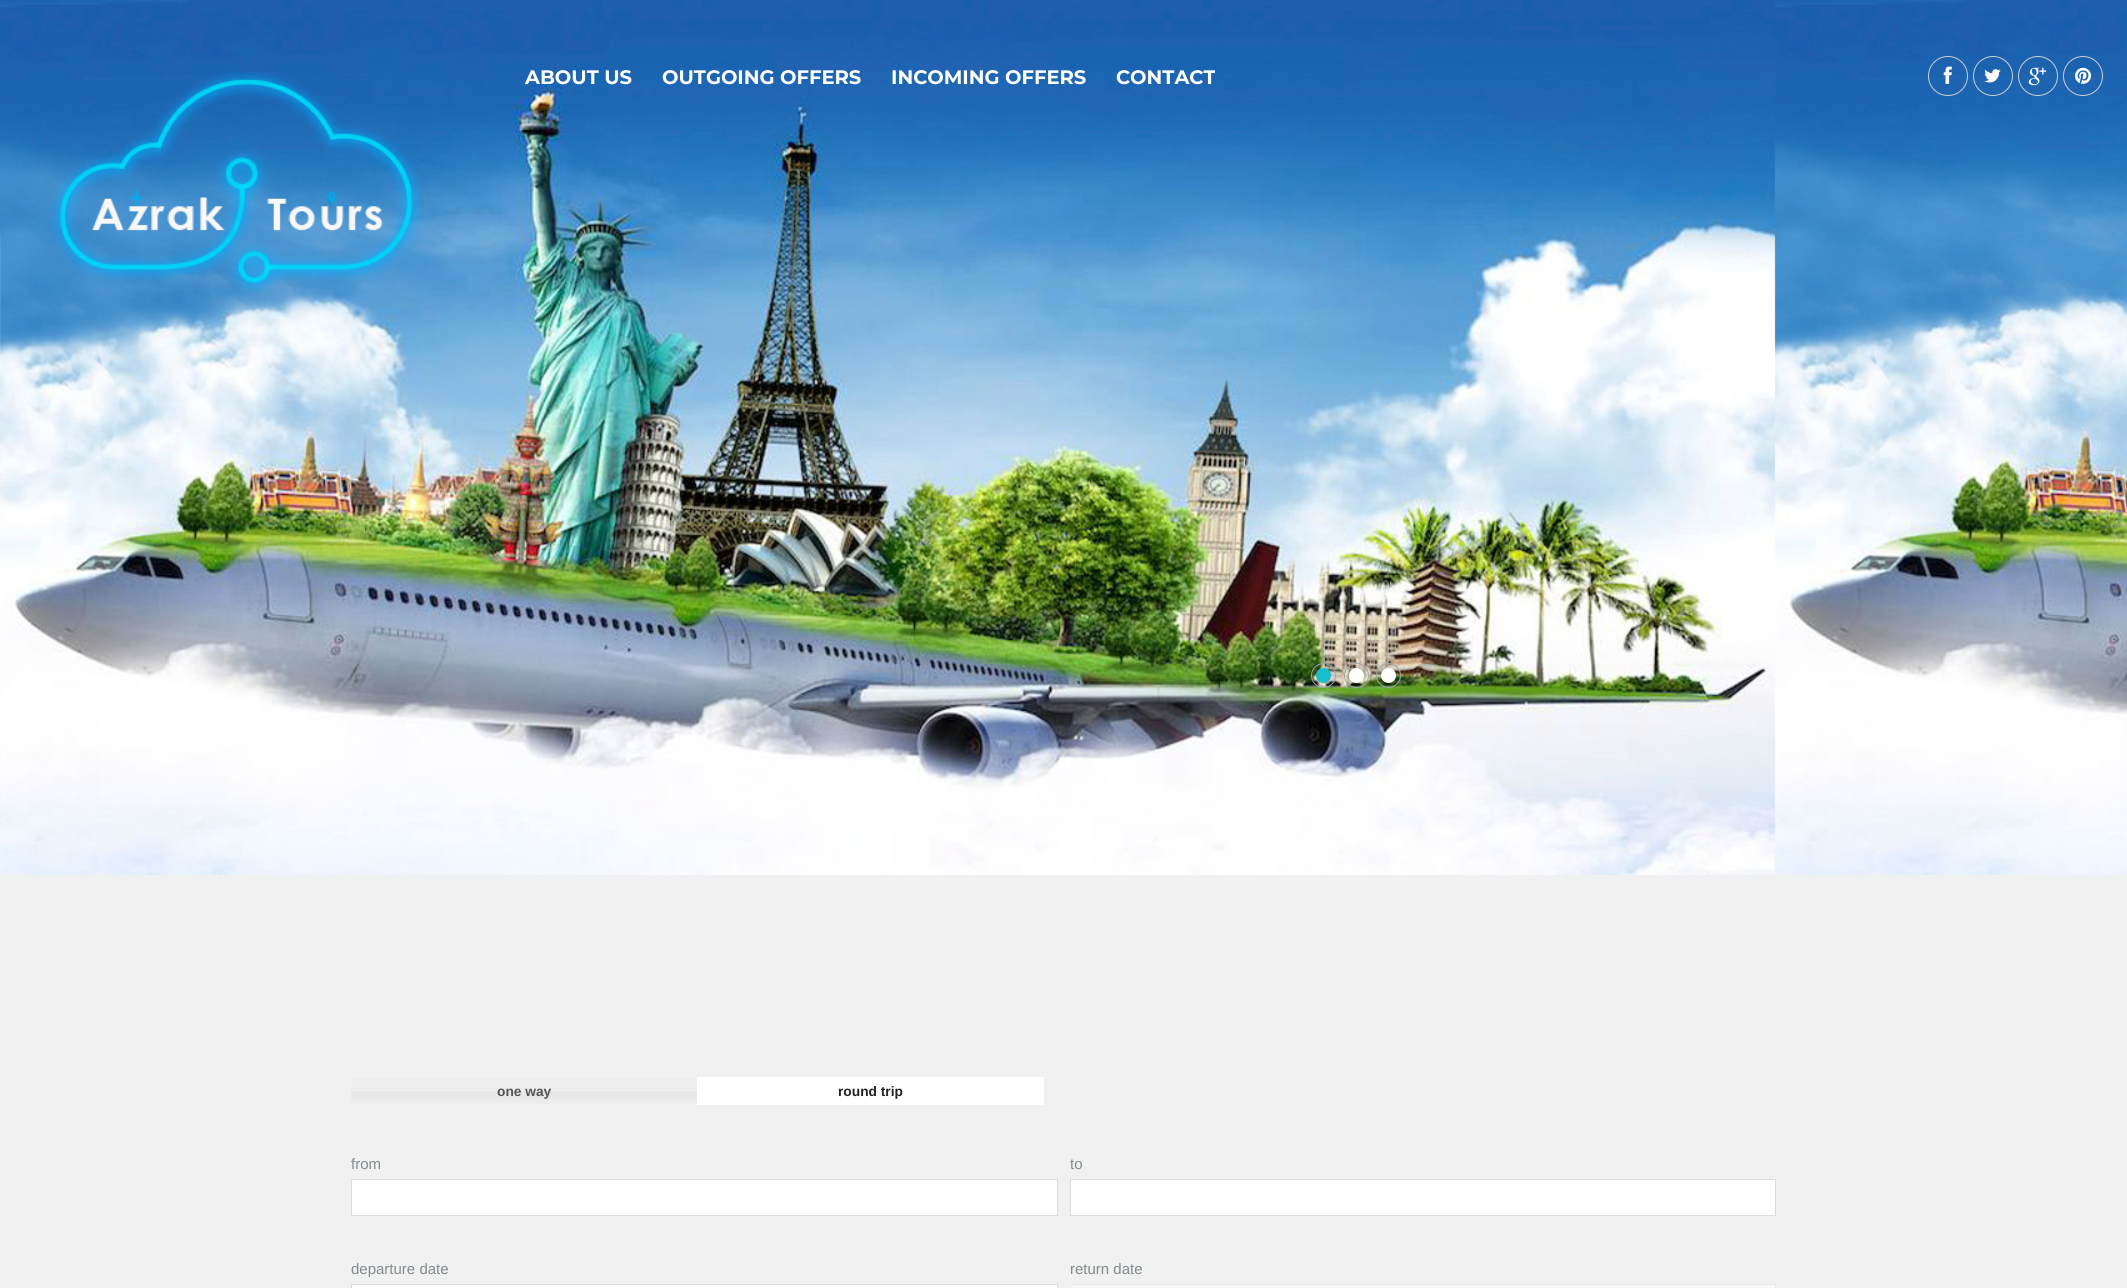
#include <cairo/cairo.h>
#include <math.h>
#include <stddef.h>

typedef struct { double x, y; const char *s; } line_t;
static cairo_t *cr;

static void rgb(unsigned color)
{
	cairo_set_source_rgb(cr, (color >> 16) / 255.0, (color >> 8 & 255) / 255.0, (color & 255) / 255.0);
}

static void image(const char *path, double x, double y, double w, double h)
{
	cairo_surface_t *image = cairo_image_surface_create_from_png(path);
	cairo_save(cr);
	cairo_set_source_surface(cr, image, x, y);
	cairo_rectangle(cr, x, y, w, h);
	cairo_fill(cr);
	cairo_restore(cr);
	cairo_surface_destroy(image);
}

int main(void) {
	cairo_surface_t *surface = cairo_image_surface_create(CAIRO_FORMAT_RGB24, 2127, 1288);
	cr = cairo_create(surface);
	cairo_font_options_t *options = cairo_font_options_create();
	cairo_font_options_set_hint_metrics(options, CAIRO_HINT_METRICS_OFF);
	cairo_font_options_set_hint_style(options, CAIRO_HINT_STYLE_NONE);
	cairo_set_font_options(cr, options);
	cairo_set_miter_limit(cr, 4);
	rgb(0xf1f1f1);
	cairo_paint(cr);
	image("img/6.png", 0, 0, 2127, 875);
	image("img/1.png", 51, 71, 371, 223);
	cairo_arc(cr, 1948, 76, 19.5, 0, 2 * M_PI);
	rgb(0xc7cfd0);
	cairo_set_line_width(cr, 1);
	cairo_stroke(cr);
	image("img/2.png", 1943, 66, 9, 18);
	cairo_arc(cr, 1993, 76, 19.5, 0, 2 * M_PI);
	cairo_stroke(cr);
	image("img/3.png", 1984, 69, 17, 14);
	cairo_arc(cr, 2038, 76, 19.5, 0, 2 * M_PI);
	cairo_stroke(cr);
	image("img/4.png", 2028, 67, 19, 19);
	cairo_arc(cr, 2083, 76, 19.5, 0, 2 * M_PI);
	cairo_stroke(cr);
	image("img/5.png", 2075, 67, 17, 17);
	cairo_arc(cr, 1323.5, 675.5, 12, 0, 2 * M_PI);
	rgb(0x9aa8a9);
	cairo_stroke(cr);
	rgb(0x19bdce);
	cairo_arc(cr, 1323.5, 675.5, 7.5, 0, 2 * M_PI);
	cairo_fill(cr);
	cairo_arc(cr, 1356.5, 675.5, 12, 0, 2 * M_PI);
	rgb(0x9aa8a9);
	cairo_stroke(cr);
	rgb(0xffffff);
	cairo_arc(cr, 1356.5, 675.5, 7.5, 0, 2 * M_PI);
	cairo_fill(cr);
	cairo_arc(cr, 1388.5, 675.5, 12, 0, 2 * M_PI);
	rgb(0x9aa8a9);
	cairo_stroke(cr);
	rgb(0xffffff);
	cairo_arc(cr, 1388.5, 675.5, 7.5, 0, 2 * M_PI);
	cairo_fill(cr);
	image("img/7.png", 351, 1078, 346, 27);
	cairo_rectangle(cr, 697, 1077, 347, 28);
	cairo_fill(cr);
	cairo_rectangle(cr, 351.5, 1179.5, 706, 36);
	cairo_fill_preserve(cr);
	rgb(0xdddddd);
	cairo_stroke(cr);
	rgb(0xffffff);
	cairo_rectangle(cr, 1070.5, 1179.5, 705, 36);
	cairo_fill_preserve(cr);
	rgb(0xdddddd);
	cairo_stroke(cr);
	rgb(0xffffff);
	cairo_rectangle(cr, 351.5, 1284.5, 706, 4);
	cairo_fill_preserve(cr);
	rgb(0xdddddd);
	cairo_stroke(cr);
	rgb(0xf9f9f9);
	cairo_rectangle(cr, 1070.5, 1284.5, 705, 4);
	cairo_fill_preserve(cr);
	rgb(0xe8e8e8);
	cairo_stroke(cr);
	cairo_select_font_face(cr, "Montserrat", CAIRO_FONT_SLANT_NORMAL, CAIRO_FONT_WEIGHT_BOLD);
	cairo_set_font_size(cr, 19.5);
	rgb(0xffffff);
	{
		static const line_t items[] = {
			{525, 84, "ABOUT US"},
			{662, 84, "OUTGOING OFFERS"},
			{891, 84, "INCOMING OFFERS"},
			{1116, 84, "CONTACT"},
		};
		for (size_t i = 0; i < sizeof items / sizeof *items; i++) {
			cairo_move_to(cr, items[i].x, items[i].y);
			cairo_show_text(cr, items[i].s);
		}
	}
	cairo_select_font_face(cr, "Liberation Sans", CAIRO_FONT_SLANT_NORMAL, CAIRO_FONT_WEIGHT_BOLD);
	cairo_set_font_size(cr, 13.75);
	rgb(0x555555);
	cairo_move_to(cr, 497, 1096);
	cairo_show_text(cr, "one way");
	rgb(0x212121);
	cairo_move_to(cr, 838, 1096);
	cairo_show_text(cr, "round trip");
	cairo_select_font_face(cr, "Liberation Sans", CAIRO_FONT_SLANT_NORMAL, CAIRO_FONT_WEIGHT_NORMAL);
	cairo_set_font_size(cr, 15);
	rgb(0x818c8d);
	{
		static const line_t items[] = {
			{351, 1169, "from"},
			{1070, 1169, "to"},
			{351, 1274, "departure date"},
			{1070, 1274, "return date"},
		};
		for (size_t i = 0; i < sizeof items / sizeof *items; i++) {
			cairo_move_to(cr, items[i].x, items[i].y);
			cairo_show_text(cr, items[i].s);
		}
	}
	cairo_surface_write_to_png(surface, "page.png");
	cairo_font_options_destroy(options);
	cairo_destroy(cr);
	cairo_surface_destroy(surface);
	return 0;
}
